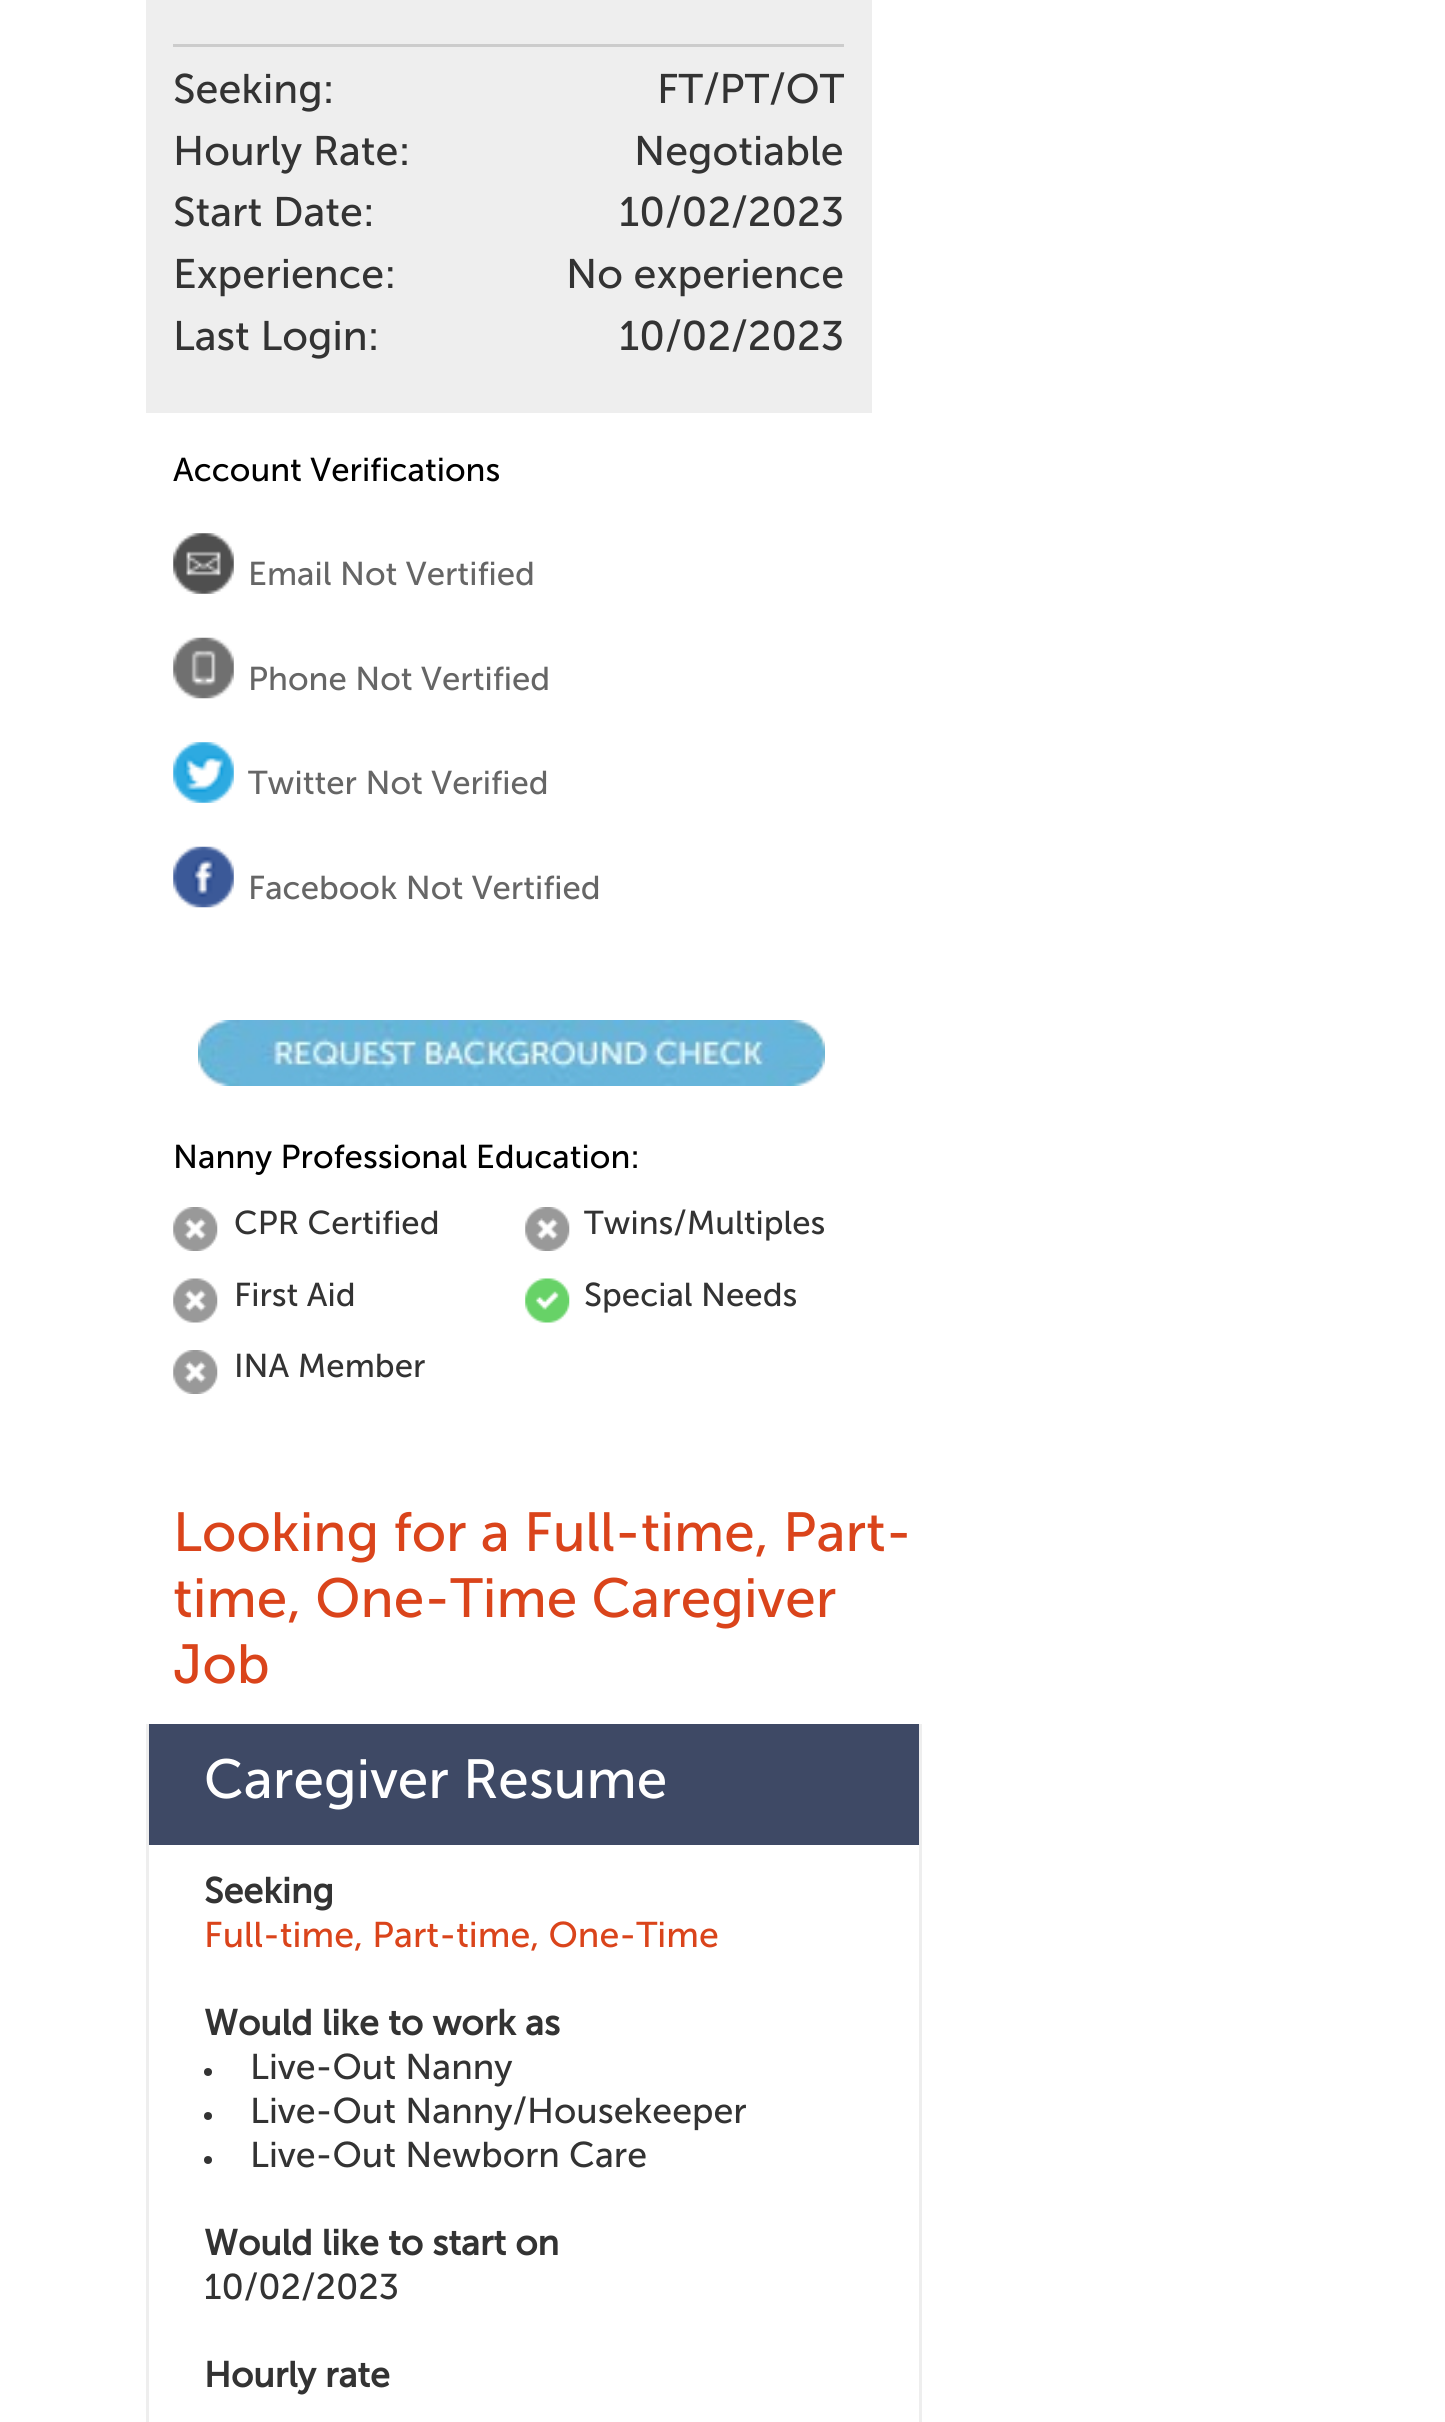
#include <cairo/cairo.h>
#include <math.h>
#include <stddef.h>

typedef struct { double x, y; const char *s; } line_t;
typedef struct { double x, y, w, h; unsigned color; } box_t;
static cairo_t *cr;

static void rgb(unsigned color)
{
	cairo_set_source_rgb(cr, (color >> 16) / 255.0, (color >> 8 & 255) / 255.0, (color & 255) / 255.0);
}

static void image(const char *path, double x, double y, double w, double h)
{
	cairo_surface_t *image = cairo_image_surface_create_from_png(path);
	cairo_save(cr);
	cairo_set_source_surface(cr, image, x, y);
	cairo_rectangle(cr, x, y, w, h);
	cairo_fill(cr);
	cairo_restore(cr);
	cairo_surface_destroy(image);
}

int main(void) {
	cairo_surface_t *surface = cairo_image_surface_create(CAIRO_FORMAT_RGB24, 1445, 2422);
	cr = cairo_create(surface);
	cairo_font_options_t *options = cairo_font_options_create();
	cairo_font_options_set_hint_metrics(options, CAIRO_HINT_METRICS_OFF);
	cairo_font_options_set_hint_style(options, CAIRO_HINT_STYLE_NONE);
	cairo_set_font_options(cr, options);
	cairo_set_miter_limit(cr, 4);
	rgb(0xffffff);
	cairo_paint(cr);
	rgb(0xeeeeee);
	cairo_rectangle(cr, 146, 0, 726, 413);
	cairo_fill(cr);
	rgb(0xcccccc);
	cairo_rectangle(cr, 173, 44, 671, 3);
	cairo_fill(cr);
	image("img/1.png", 173, 533, 61, 61);
	image("img/2.png", 173, 637, 61, 62);
	image("img/3.png", 173, 742, 61, 61);
	image("img/4.png", 173, 846, 61, 62);
	image("img/5.png", 198, 1020, 627, 66);
	image("img/6.png", 173, 1207, 45, 44);
	image("img/6.png", 525, 1207, 45, 44);
	image("img/7.png", 173, 1278, 45, 45);
	image("img/8.png", 525, 1278, 45, 45);
	image("img/9.png", 173, 1350, 45, 44);
	{
		static const box_t items[] = {
			{919, 1724, 3, 698, 0xeeeeee},
			{146, 1724, 3, 698, 0xeeeeee},
			{149, 1724, 770, 121, 0x3e4965},
		};
		for (size_t i = 0; i < sizeof items / sizeof *items; i++) {
			rgb(items[i].color);
			cairo_rectangle(cr, items[i].x, items[i].y, items[i].w, items[i].h);
			cairo_fill(cr);
		}
	}
	rgb(0x333333);
	cairo_arc(cr, 208, 2072, 4, 0, 2 * M_PI);
	cairo_fill(cr);
	cairo_arc(cr, 208, 2116, 4, 0, 2 * M_PI);
	cairo_fill(cr);
	cairo_arc(cr, 208, 2160, 4, 0, 2 * M_PI);
	cairo_fill(cr);
	cairo_select_font_face(cr, "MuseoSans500", CAIRO_FONT_SLANT_NORMAL, CAIRO_FONT_WEIGHT_NORMAL);
	cairo_set_font_size(cr, 41.25);
	{
		static const line_t items[] = {
			{173, 103, "Seeking:"},
			{657, 103, "FT/PT/OT"},
			{173, 165, "Hourly Rate:"},
			{634, 165, "Negotiable"},
			{173, 226, "Start Date:"},
			{619, 226, "10/02/2023"},
			{173, 288, "Experience:"},
			{566, 288, "No experience"},
			{173, 350, "Last Login:"},
			{619, 350, "10/02/2023"},
		};
		for (size_t i = 0; i < sizeof items / sizeof *items; i++) {
			cairo_move_to(cr, items[i].x, items[i].y);
			cairo_show_text(cr, items[i].s);
		}
	}
	cairo_set_font_size(cr, 33);
	rgb(0x000000);
	cairo_move_to(cr, 173, 481);
	cairo_show_text(cr, "Account Verifications");
	rgb(0x666666);
	{
		static const line_t items[] = {
			{248, 585, "Email Not Vertified"},
			{248, 690, "Phone Not Vertified"},
			{248, 794, "Twitter Not Verified"},
			{248, 899, "Facebook Not Vertified"},
		};
		for (size_t i = 0; i < sizeof items / sizeof *items; i++) {
			cairo_move_to(cr, items[i].x, items[i].y);
			cairo_show_text(cr, items[i].s);
		}
	}
	rgb(0x000000);
	cairo_move_to(cr, 173, 1168);
	cairo_show_text(cr, "Nanny Professional Education:");
	rgb(0x333333);
	{
		static const line_t items[] = {
			{234, 1234, "CPR Certified"},
			{584, 1234, "Twins/Multiples"},
			{234, 1306, "First Aid"},
			{584, 1306, "Special Needs"},
			{234, 1377, "INA Member"},
		};
		for (size_t i = 0; i < sizeof items / sizeof *items; i++) {
			cairo_move_to(cr, items[i].x, items[i].y);
			cairo_show_text(cr, items[i].s);
		}
	}
	cairo_set_font_size(cr, 55);
	rgb(0xda441b);
	{
		static const line_t items[] = {
			{173, 1551, "Looking for a Full-time, Part-"},
			{173, 1617, "time, One-Time Caregiver"},
			{173, 1683, "Job"},
		};
		for (size_t i = 0; i < sizeof items / sizeof *items; i++) {
			cairo_move_to(cr, items[i].x, items[i].y);
			cairo_show_text(cr, items[i].s);
		}
	}
	rgb(0xffffff);
	cairo_move_to(cr, 204, 1798);
	cairo_show_text(cr, "Caregiver Resume");
	cairo_select_font_face(cr, "MuseoSans500", CAIRO_FONT_SLANT_NORMAL, CAIRO_FONT_WEIGHT_BOLD);
	cairo_set_font_size(cr, 35.75);
	rgb(0x333333);
	cairo_move_to(cr, 204, 1903);
	cairo_show_text(cr, "Seeking");
	cairo_select_font_face(cr, "MuseoSans500", CAIRO_FONT_SLANT_NORMAL, CAIRO_FONT_WEIGHT_NORMAL);
	rgb(0xda441b);
	cairo_move_to(cr, 204, 1947);
	cairo_show_text(cr, "Full-time, Part-time, One-Time");
	cairo_select_font_face(cr, "MuseoSans500", CAIRO_FONT_SLANT_NORMAL, CAIRO_FONT_WEIGHT_BOLD);
	rgb(0x333333);
	cairo_move_to(cr, 204, 2035);
	cairo_show_text(cr, "Would like to work as");
	cairo_select_font_face(cr, "MuseoSans500", CAIRO_FONT_SLANT_NORMAL, CAIRO_FONT_WEIGHT_NORMAL);
	{
		static const line_t items[] = {
			{250, 2079, "Live-Out Nanny"},
			{250, 2123, "Live-Out Nanny/Housekeeper"},
			{250, 2167, "Live-Out Newborn Care"},
		};
		for (size_t i = 0; i < sizeof items / sizeof *items; i++) {
			cairo_move_to(cr, items[i].x, items[i].y);
			cairo_show_text(cr, items[i].s);
		}
	}
	cairo_select_font_face(cr, "MuseoSans500", CAIRO_FONT_SLANT_NORMAL, CAIRO_FONT_WEIGHT_BOLD);
	cairo_move_to(cr, 204, 2255);
	cairo_show_text(cr, "Would like to start on");
	cairo_select_font_face(cr, "MuseoSans500", CAIRO_FONT_SLANT_NORMAL, CAIRO_FONT_WEIGHT_NORMAL);
	cairo_move_to(cr, 204, 2299);
	cairo_show_text(cr, "10/02/2023");
	cairo_select_font_face(cr, "MuseoSans500", CAIRO_FONT_SLANT_NORMAL, CAIRO_FONT_WEIGHT_BOLD);
	cairo_move_to(cr, 204, 2387);
	cairo_show_text(cr, "Hourly rate");
	cairo_surface_write_to_png(surface, "page.png");
	cairo_font_options_destroy(options);
	cairo_destroy(cr);
	cairo_surface_destroy(surface);
	return 0;
}
